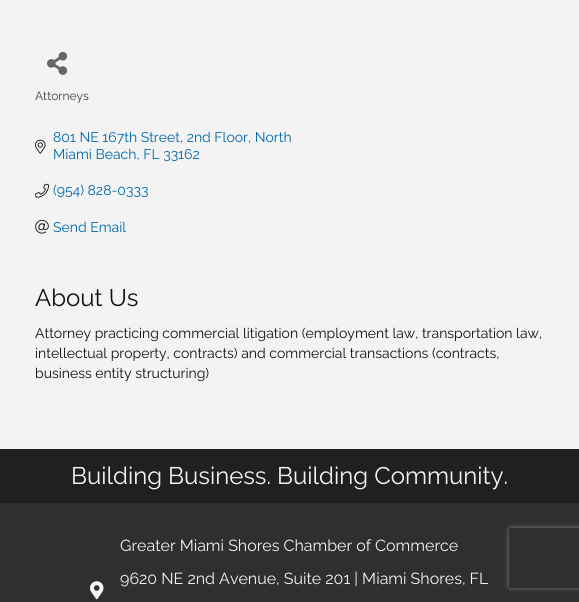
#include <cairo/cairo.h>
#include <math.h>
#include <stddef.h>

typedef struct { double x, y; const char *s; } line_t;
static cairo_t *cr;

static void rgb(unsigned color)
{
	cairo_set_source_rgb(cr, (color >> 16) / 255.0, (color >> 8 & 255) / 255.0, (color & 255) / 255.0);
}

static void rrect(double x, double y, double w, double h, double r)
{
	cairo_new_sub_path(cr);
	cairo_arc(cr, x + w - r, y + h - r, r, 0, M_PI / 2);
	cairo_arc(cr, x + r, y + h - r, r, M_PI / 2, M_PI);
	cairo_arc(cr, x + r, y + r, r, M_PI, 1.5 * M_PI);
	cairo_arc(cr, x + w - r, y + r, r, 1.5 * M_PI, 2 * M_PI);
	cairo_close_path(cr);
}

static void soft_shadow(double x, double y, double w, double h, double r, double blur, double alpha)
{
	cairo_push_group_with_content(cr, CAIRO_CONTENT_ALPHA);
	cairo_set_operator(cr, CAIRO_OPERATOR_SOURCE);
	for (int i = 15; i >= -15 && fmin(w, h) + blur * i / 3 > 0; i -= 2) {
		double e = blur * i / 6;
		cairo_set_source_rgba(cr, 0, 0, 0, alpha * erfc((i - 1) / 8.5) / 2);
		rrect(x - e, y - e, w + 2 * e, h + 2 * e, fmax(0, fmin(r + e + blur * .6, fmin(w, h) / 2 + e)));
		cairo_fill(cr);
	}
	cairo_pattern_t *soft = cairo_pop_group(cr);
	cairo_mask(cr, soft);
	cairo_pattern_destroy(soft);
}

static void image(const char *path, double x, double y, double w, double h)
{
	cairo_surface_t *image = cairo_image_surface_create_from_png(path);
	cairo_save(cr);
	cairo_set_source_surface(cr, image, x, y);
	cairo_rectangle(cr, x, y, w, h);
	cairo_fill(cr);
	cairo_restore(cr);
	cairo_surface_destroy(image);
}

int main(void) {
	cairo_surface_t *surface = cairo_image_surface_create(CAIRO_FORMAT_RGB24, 579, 602);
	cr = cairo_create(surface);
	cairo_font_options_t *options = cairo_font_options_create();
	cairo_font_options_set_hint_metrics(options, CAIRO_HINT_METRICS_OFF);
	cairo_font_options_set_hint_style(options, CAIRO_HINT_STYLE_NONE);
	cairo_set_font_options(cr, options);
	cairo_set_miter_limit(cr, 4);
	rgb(0xf3f3f3);
	cairo_paint(cr);
	image("img/1.png", 47, 51, 21, 24);
	image("img/2.png", 35, 139, 11, 15);
	image("img/3.png", 35, 183, 14, 15);
	image("img/4.png", 35, 220, 14, 14);
	rgb(0x202020);
	cairo_rectangle(cr, 0, 449, 579, 54);
	cairo_fill(cr);
	rgb(0x2f2f2f);
	cairo_rectangle(cr, 0, 503, 579, 99);
	cairo_fill(cr);
	image("img/5.png", 90, 581, 14, 19);
	cairo_save(cr);
	cairo_set_fill_rule(cr, CAIRO_FILL_RULE_EVEN_ODD);
	cairo_new_path(cr);
	cairo_move_to(cr, 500, 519);
	cairo_line_to(cr, 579, 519);
	cairo_line_to(cr, 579, 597);
	cairo_line_to(cr, 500, 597);
	cairo_close_path(cr);
	cairo_move_to(cr, 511, 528);
	cairo_line_to(cr, 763, 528);
	cairo_curve_to(cr, 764, 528, 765, 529, 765, 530);
	cairo_line_to(cr, 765, 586);
	cairo_curve_to(cr, 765, 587, 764, 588, 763, 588);
	cairo_line_to(cr, 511, 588);
	cairo_curve_to(cr, 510, 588, 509, 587, 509, 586);
	cairo_line_to(cr, 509, 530);
	cairo_curve_to(cr, 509, 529, 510, 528, 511, 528);
	cairo_close_path(cr);
	cairo_clip(cr);
	rgb(0x808080);
	soft_shadow(509, 528, 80, 60, 2, 2.5, 1);
	cairo_restore(cr);
	cairo_select_font_face(cr, "Raleway", CAIRO_FONT_SLANT_NORMAL, CAIRO_FONT_WEIGHT_NORMAL);
	cairo_set_font_size(cr, 12);
	rgb(0x3e3e3e);
	cairo_move_to(cr, 35, 100);
	cairo_show_text(cr, "Attorneys");
	cairo_set_font_size(cr, 14);
	rgb(0x0068ac);
	{
		static const line_t items[] = {
			{53, 142, "801 NE 167th Street, 2nd Floor, North"},
			{53, 159, "Miami Beach, FL 33162"},
			{53, 195, "(954) 828-0333"},
			{53, 232, "Send Email"},
		};
		for (size_t i = 0; i < sizeof items / sizeof *items; i++) {
			cairo_move_to(cr, items[i].x, items[i].y);
			cairo_show_text(cr, items[i].s);
		}
	}
	cairo_set_font_size(cr, 24);
	rgb(0x111111);
	cairo_move_to(cr, 35, 306);
	cairo_show_text(cr, "About Us");
	cairo_set_font_size(cr, 14);
	{
		static const line_t items[] = {
			{35, 338, "Attorney practicing commercial litigation (employment law, transportation law,"},
			{35, 358, "intellectual property, contracts) and commercial transactions (contracts,"},
			{35, 378, "business entity structuring)"},
		};
		for (size_t i = 0; i < sizeof items / sizeof *items; i++) {
			cairo_move_to(cr, items[i].x, items[i].y);
			cairo_show_text(cr, items[i].s);
		}
	}
	cairo_set_font_size(cr, 24);
	rgb(0xf3f3f3);
	cairo_move_to(cr, 71, 484);
	cairo_show_text(cr, "Building Business. Building Community.");
	cairo_set_font_size(cr, 16);
	cairo_move_to(cr, 120, 551);
	cairo_show_text(cr, "Greater Miami Shores Chamber of Commerce");
	cairo_move_to(cr, 120, 584);
	cairo_show_text(cr, "9620 NE 2nd Avenue, Suite 201 | Miami Shores, FL");
	cairo_surface_write_to_png(surface, "page.png");
	cairo_font_options_destroy(options);
	cairo_destroy(cr);
	cairo_surface_destroy(surface);
	return 0;
}
